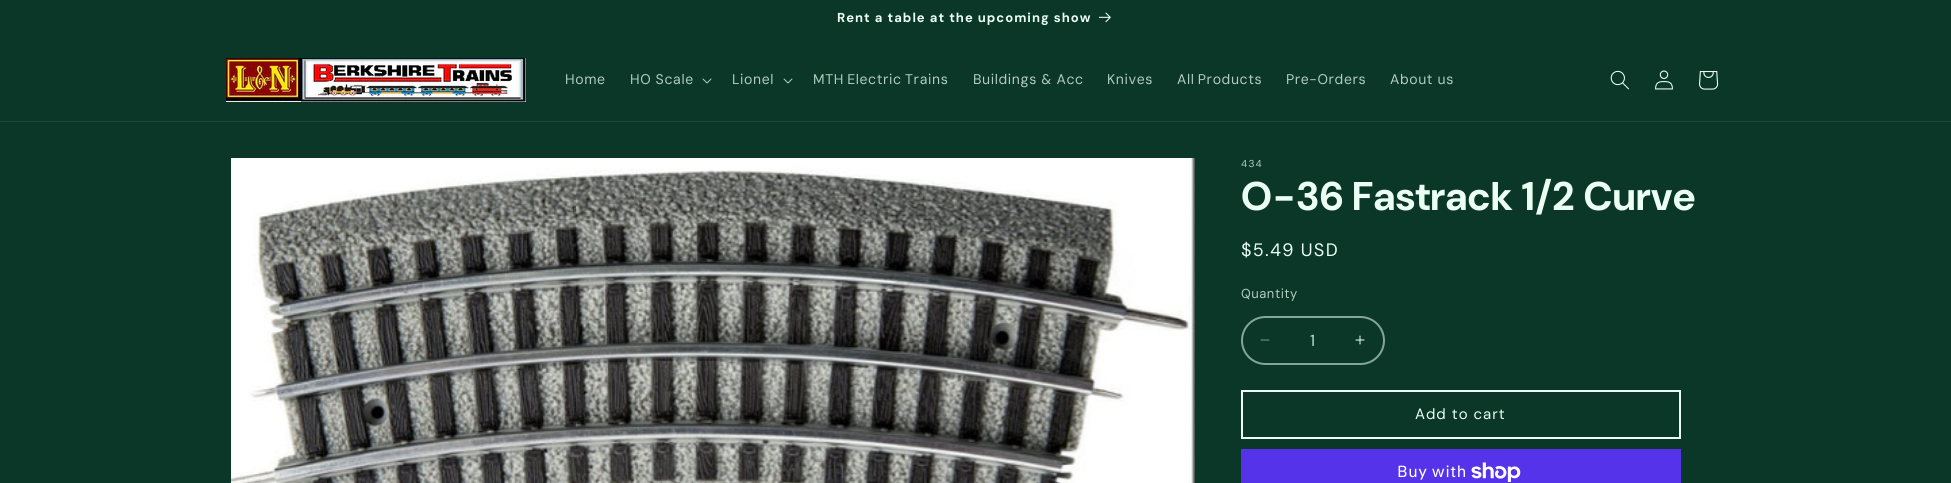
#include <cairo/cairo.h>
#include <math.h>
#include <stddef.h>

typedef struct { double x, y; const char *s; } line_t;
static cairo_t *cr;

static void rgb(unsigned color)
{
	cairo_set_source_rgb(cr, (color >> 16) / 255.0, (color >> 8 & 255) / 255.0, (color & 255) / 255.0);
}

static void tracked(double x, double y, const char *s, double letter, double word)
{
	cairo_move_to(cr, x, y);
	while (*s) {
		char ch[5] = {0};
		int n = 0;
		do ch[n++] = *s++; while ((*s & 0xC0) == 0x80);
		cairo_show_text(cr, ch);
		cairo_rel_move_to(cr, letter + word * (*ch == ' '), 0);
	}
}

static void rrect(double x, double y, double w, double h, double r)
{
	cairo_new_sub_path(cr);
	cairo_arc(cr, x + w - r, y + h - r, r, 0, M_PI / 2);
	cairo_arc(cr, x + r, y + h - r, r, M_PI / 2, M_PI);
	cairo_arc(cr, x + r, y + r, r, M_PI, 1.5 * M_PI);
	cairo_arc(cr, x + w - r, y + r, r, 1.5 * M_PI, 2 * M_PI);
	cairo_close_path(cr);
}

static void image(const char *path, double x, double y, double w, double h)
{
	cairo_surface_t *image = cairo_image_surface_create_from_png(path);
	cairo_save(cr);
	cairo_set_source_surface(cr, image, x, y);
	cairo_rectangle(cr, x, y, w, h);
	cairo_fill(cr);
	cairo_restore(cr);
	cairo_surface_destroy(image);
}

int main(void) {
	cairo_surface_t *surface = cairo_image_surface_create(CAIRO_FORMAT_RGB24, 1951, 483);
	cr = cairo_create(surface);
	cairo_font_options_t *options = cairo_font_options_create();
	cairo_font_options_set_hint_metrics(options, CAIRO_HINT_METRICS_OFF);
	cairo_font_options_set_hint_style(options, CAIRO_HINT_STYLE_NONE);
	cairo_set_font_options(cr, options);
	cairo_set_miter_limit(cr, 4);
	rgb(0x0b3728);
	cairo_paint(cr);
	image("img/1.png", 1099, 12, 12, 11);
	rgb(0x1d4738);
	cairo_rectangle(cr, 0, 121, 1951, 1);
	cairo_fill(cr);
	image("img/2.png", 226, 58, 300, 44);
	image("img/3.png", 702, 78, 10, 6);
	image("img/3.png", 783, 78, 10, 6);
	image("img/4.png", 1610, 70, 19, 20);
	image("img/5.png", 1655, 70, 18, 20);
	image("img/6.png", 1699, 71, 20, 19);
	image("img/7.png", 231, 158, 964, 325);
	image("img/8.png", 1260, 339, 10, 2);
	image("img/9.png", 1355, 335, 10, 10);
	rrect(1242, 317, 142, 47, 23.5);
	rgb(0x86a599);
	cairo_stroke(cr);
	cairo_rectangle(cr, 1242, 391, 438, 47);
	rgb(0xebfff5);
	cairo_stroke(cr);
	rgb(0x5433eb);
	cairo_rectangle(cr, 1241, 449, 440, 34);
	cairo_fill(cr);
	image("img/10.png", 1471, 462, 50, 20);
	cairo_select_font_face(cr, "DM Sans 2", CAIRO_FONT_SLANT_NORMAL, CAIRO_FONT_WEIGHT_BOLD);
	cairo_set_font_size(cr, 13);
	rgb(0xebfff5);
	tracked(837, 22, "Rent a table at the upcoming show", 1, 0);
	cairo_select_font_face(cr, "DM Sans", CAIRO_FONT_SLANT_NORMAL, CAIRO_FONT_WEIGHT_NORMAL);
	cairo_set_font_size(cr, 14);
	rgb(0xb3cdc2);
	{
		static const line_t items[] = {
			{565, 84, "Home"},
			{630, 84, "HO Scale"},
			{732, 84, "Lionel"},
		};
		for (size_t i = 0; i < sizeof items / sizeof *items; i++) {
			tracked(items[i].x, items[i].y, items[i].s, 0.6, 0);
		}
	}
	tracked(813, 84, "MTH Electric Trains", 0.6, -1);
	tracked(973, 84, "Buildings & Acc", 0.6, 0);
	tracked(1107, 84, "Knives", 0.6, 0);
	tracked(1177, 84, "All Products", 0.6, -1);
	tracked(1286, 84, "Pre-Orders", 0.6, 0);
	tracked(1390, 84, "About us", 0.6, 0);
	cairo_set_font_size(cr, 10);
	tracked(1241, 167, "434", 1.25, 0);
	cairo_select_font_face(cr, "DM Sans", CAIRO_FONT_SLANT_NORMAL, CAIRO_FONT_WEIGHT_BOLD);
	cairo_set_font_size(cr, 40);
	rgb(0xebfff5);
	tracked(1241, 210, "O-36 Fastrack 1/2 Curve", 0.6, 0);
	cairo_select_font_face(cr, "DM Sans", CAIRO_FONT_SLANT_NORMAL, CAIRO_FONT_WEIGHT_NORMAL);
	cairo_set_font_size(cr, 18);
	tracked(1241, 256, "$5.49 USD", 1.25, 0);
	cairo_set_font_size(cr, 13);
	rgb(0xb3cdc2);
	tracked(1241, 298, "Quantity", 0.5, 0);
	cairo_select_font_face(cr, "DM Sans 2", CAIRO_FONT_SLANT_NORMAL, CAIRO_FONT_WEIGHT_NORMAL);
	cairo_set_font_size(cr, 16);
	rgb(0xc9e1d6);
	cairo_move_to(cr, 1310, 346);
	cairo_show_text(cr, "1");
	cairo_select_font_face(cr, "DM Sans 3", CAIRO_FONT_SLANT_NORMAL, CAIRO_FONT_WEIGHT_NORMAL);
	cairo_set_font_size(cr, 15);
	rgb(0xebfff5);
	tracked(1415, 419, "Add to cart", 1, 0);
	cairo_select_font_face(cr, "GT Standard", CAIRO_FONT_SLANT_NORMAL, CAIRO_FONT_WEIGHT_NORMAL);
	cairo_set_font_size(cr, 16);
	rgb(0xffffff);
	tracked(1397, 477, "Buy with", 0.6, 0);
	cairo_surface_write_to_png(surface, "page.png");
	cairo_font_options_destroy(options);
	cairo_destroy(cr);
	cairo_surface_destroy(surface);
	return 0;
}
